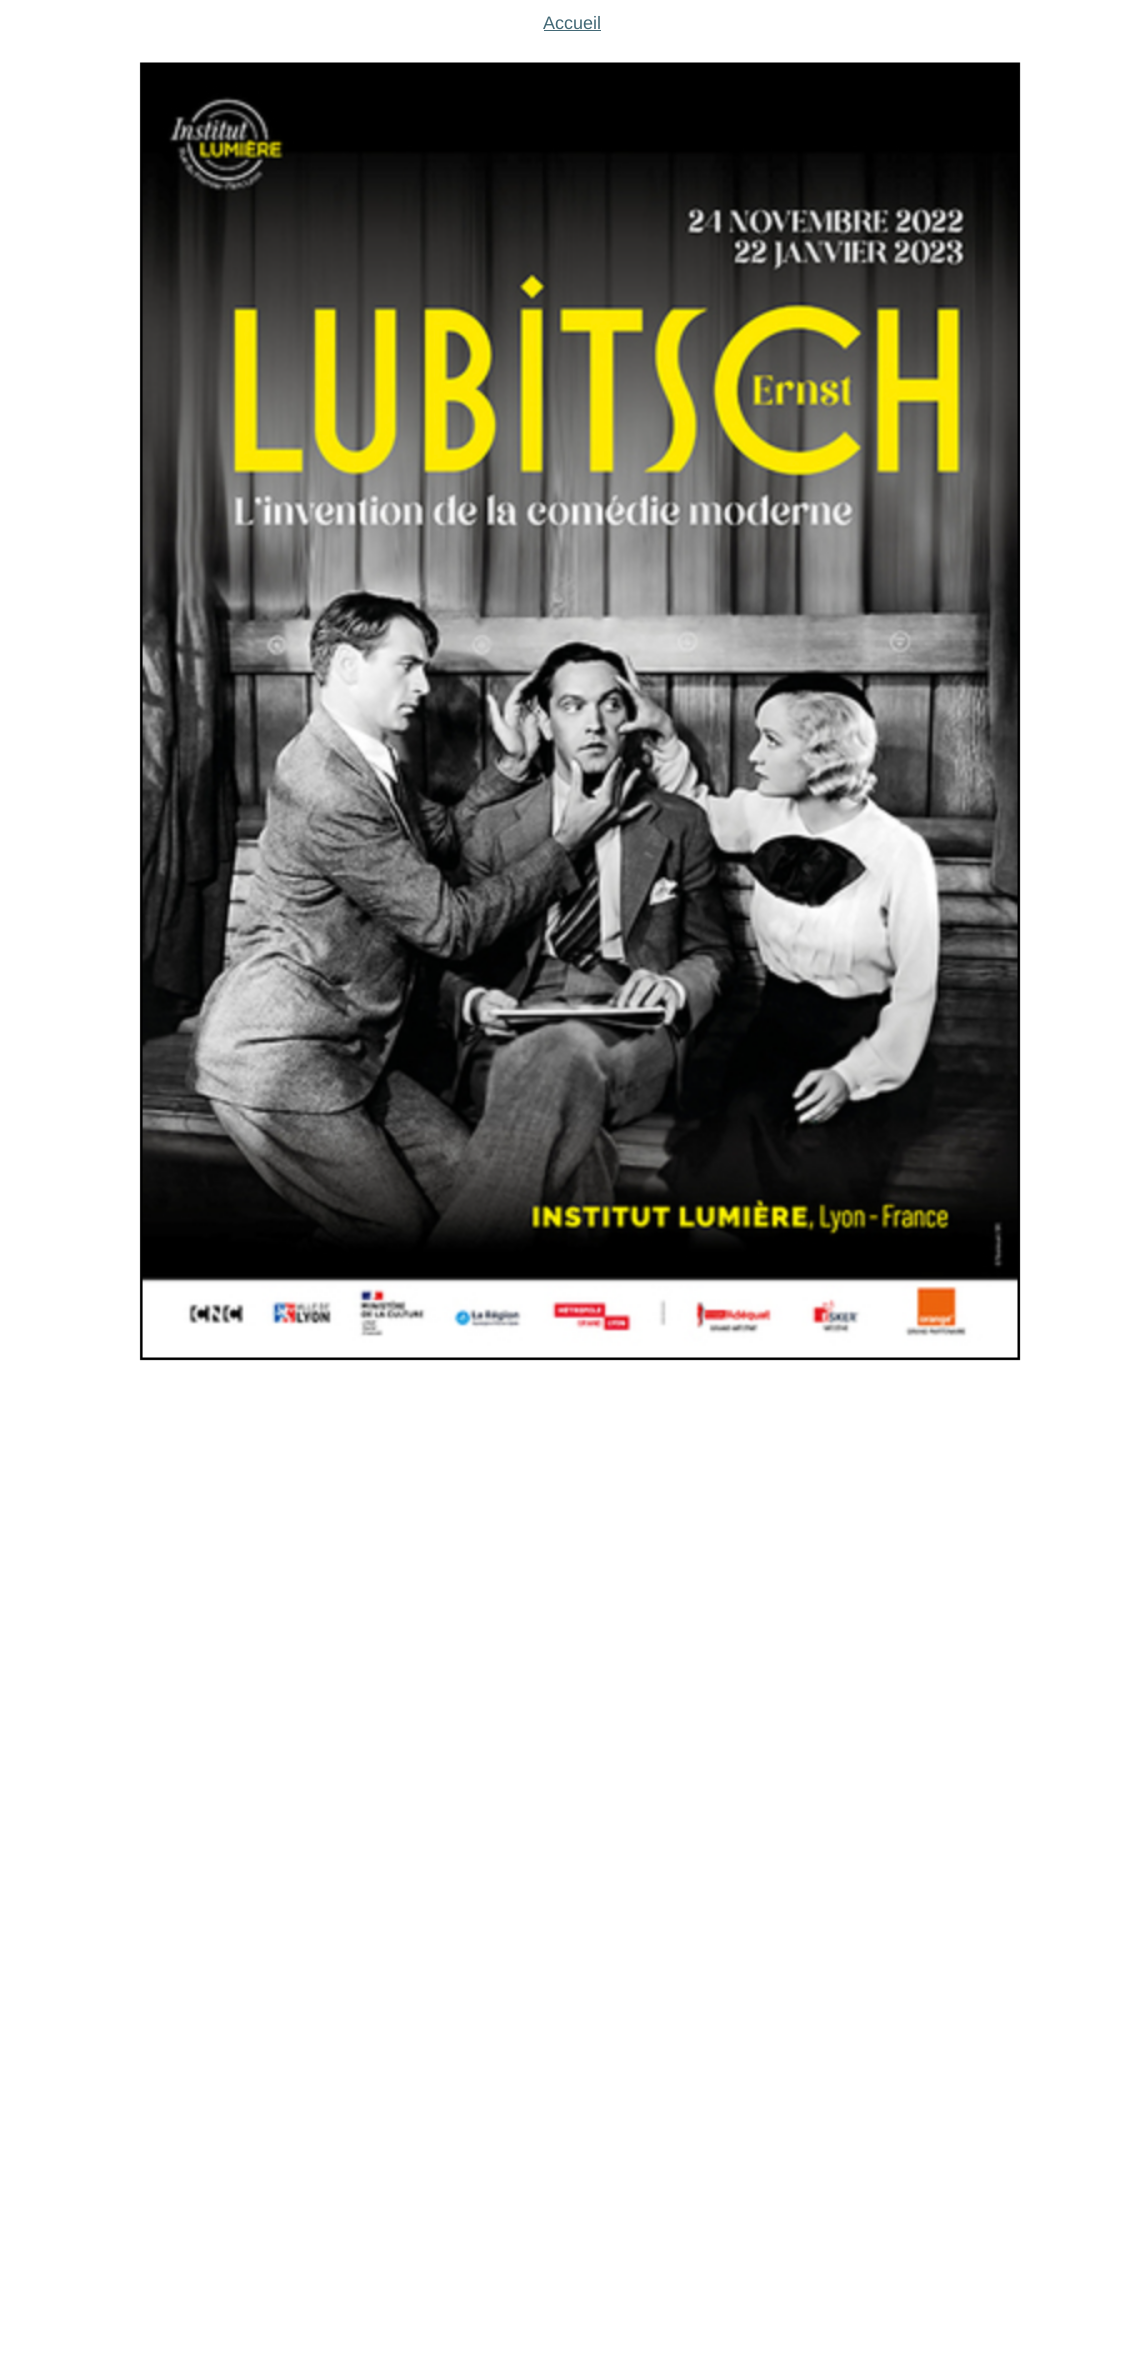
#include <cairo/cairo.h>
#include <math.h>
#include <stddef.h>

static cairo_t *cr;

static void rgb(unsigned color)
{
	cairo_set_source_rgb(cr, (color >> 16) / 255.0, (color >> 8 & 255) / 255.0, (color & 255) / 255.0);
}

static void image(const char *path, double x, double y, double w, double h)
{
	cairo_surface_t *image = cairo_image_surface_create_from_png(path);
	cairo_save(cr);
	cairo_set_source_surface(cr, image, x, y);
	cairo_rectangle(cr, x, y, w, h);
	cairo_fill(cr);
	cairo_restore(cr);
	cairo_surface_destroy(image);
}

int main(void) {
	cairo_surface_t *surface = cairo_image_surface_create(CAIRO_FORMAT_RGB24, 1144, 2369);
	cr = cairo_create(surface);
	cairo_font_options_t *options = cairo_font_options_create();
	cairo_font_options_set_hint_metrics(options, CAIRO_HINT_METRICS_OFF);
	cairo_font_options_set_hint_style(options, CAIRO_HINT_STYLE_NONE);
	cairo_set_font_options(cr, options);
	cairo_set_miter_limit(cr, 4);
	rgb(0xffffff);
	cairo_paint(cr);
	rgb(0x436976);
	cairo_rectangle(cr, 544, 30, 57, 1);
	cairo_fill(cr);
	image("img/1.png", 139, 62, 882, 1299);
	cairo_select_font_face(cr, "Liberation Sans", CAIRO_FONT_SLANT_NORMAL, CAIRO_FONT_WEIGHT_NORMAL);
	cairo_set_font_size(cr, 18);
	cairo_move_to(cr, 543, 29);
	cairo_show_text(cr, "Accueil");
	cairo_surface_write_to_png(surface, "page.png");
	cairo_font_options_destroy(options);
	cairo_destroy(cr);
	cairo_surface_destroy(surface);
	return 0;
}
